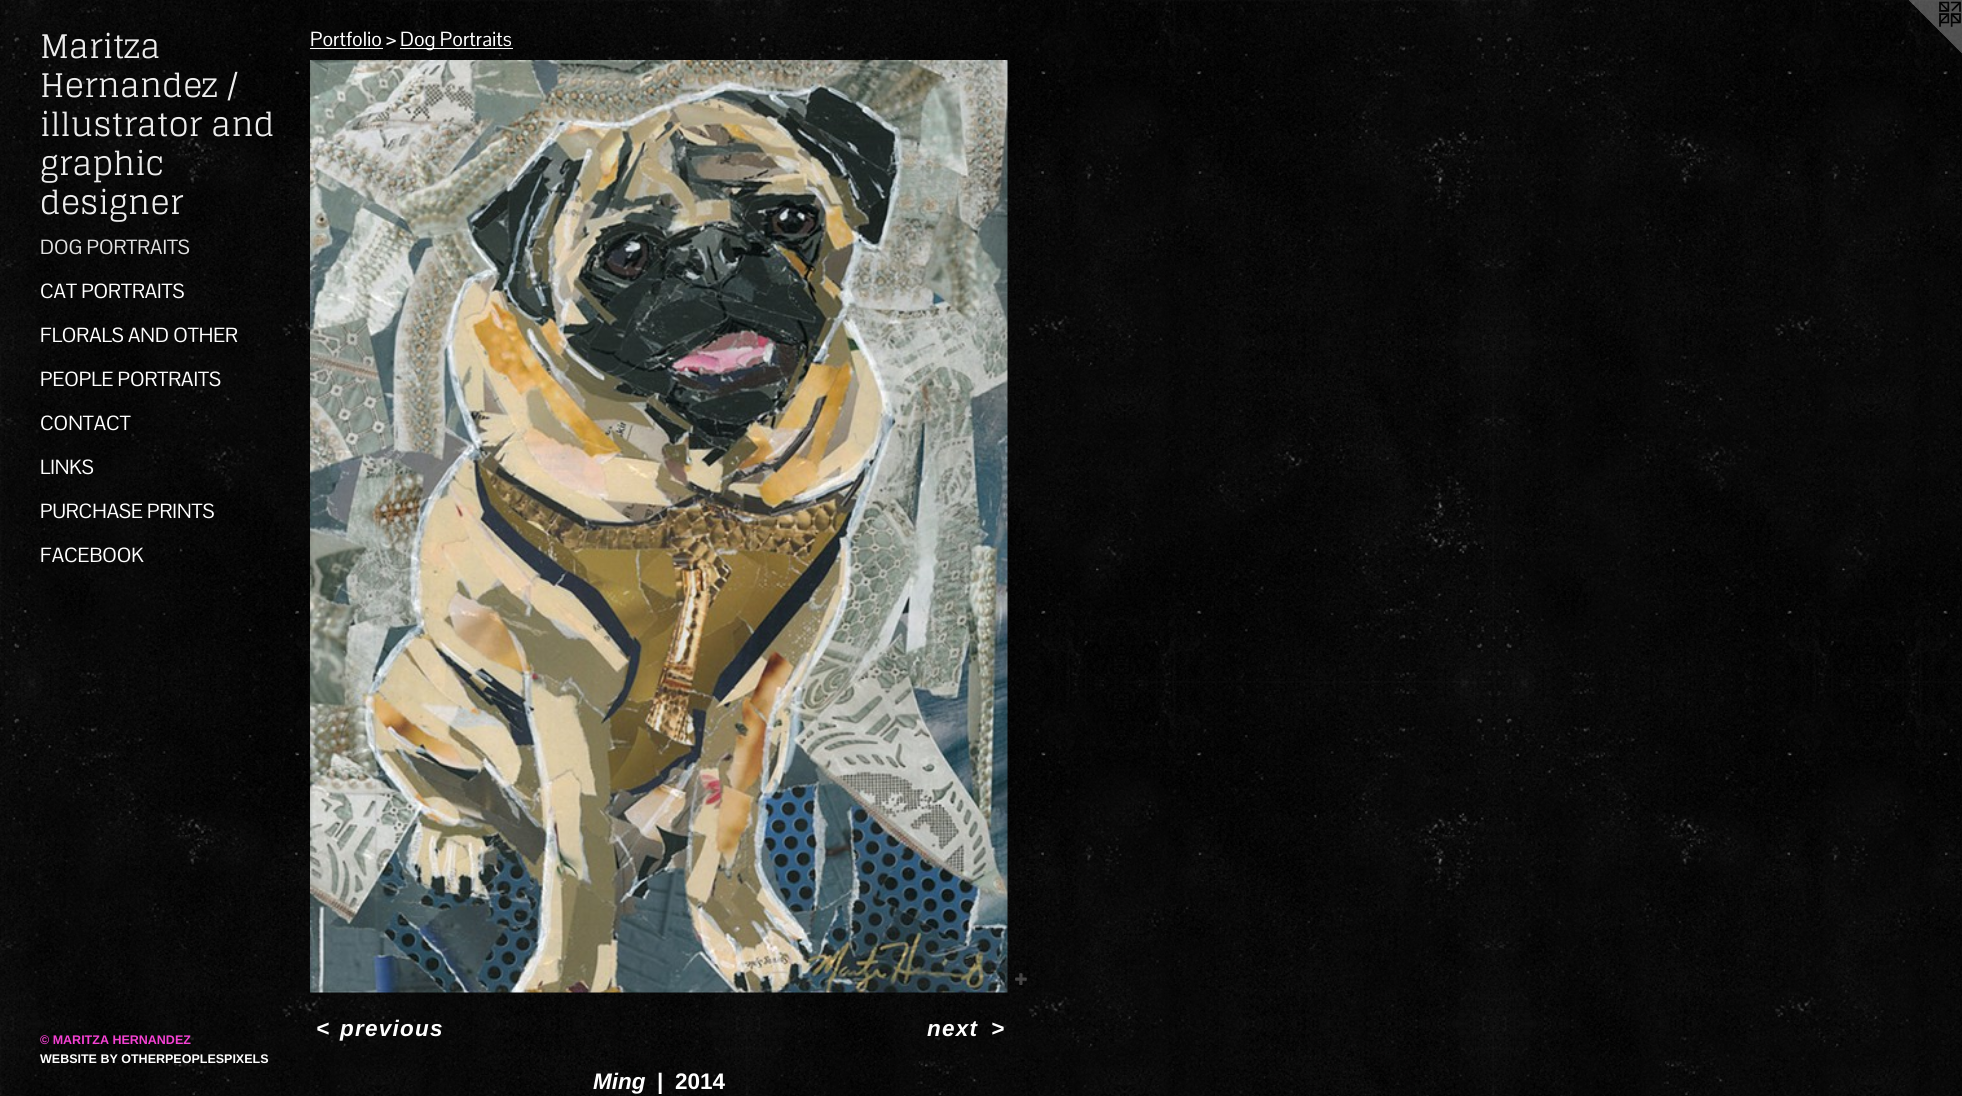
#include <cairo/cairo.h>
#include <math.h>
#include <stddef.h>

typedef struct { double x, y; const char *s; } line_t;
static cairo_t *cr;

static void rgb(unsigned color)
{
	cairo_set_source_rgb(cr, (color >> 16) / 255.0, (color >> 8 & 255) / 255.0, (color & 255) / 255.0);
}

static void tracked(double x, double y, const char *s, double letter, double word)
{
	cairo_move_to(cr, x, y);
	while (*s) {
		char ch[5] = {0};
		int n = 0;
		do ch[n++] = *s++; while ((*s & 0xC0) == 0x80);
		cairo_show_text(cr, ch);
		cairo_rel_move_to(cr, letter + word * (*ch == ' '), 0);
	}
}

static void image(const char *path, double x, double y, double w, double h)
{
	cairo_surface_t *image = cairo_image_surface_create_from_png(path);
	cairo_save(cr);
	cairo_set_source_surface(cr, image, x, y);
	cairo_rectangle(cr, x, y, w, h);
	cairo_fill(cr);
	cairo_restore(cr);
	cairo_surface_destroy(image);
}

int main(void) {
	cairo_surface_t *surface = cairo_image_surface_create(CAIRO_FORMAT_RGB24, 1962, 1096);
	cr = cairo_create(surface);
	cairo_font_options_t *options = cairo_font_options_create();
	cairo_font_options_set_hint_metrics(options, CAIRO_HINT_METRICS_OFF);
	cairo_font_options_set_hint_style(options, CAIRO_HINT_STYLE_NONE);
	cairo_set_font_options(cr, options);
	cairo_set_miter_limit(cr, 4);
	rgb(0xffffff);
	cairo_paint(cr);
	image("img/1.png", 0, 0, 1962, 1096);
	rgb(0xfafafa);
	cairo_rectangle(cr, 310, 48, 73, 1);
	cairo_fill(cr);
	cairo_rectangle(cr, 400, 48, 113, 1);
	cairo_fill(cr);
	image("img/2.png", 310, 60, 698, 933);
	image("img/3.png", 1015, 973, 12, 12);
	image("img/4.png", 1909, 0, 53, 54);
	cairo_select_font_face(cr, "Glegoo", CAIRO_FONT_SLANT_NORMAL, CAIRO_FONT_WEIGHT_NORMAL);
	cairo_set_font_size(cr, 32.5);
	rgb(0xededed);
	{
		static const line_t items[] = {
			{40, 58, "Maritza"},
			{40, 97, "Hernandez /"},
			{40, 136, "illustrator and"},
			{40, 175, "graphic"},
			{40, 214, "designer"},
		};
		for (size_t i = 0; i < sizeof items / sizeof *items; i++) {
			cairo_move_to(cr, items[i].x, items[i].y);
			cairo_show_text(cr, items[i].s);
		}
	}
	cairo_select_font_face(cr, "Pontano Sans", CAIRO_FONT_SLANT_NORMAL, CAIRO_FONT_WEIGHT_NORMAL);
	cairo_set_font_size(cr, 20);
	rgb(0xe1e1e1);
	cairo_move_to(cr, 40, 254);
	cairo_show_text(cr, "DOG PORTRAITS");
	rgb(0xffffff);
	{
		static const line_t items[] = {
			{40, 298, "CAT PORTRAITS"},
			{40, 342, "FLORALS AND OTHER"},
			{40, 386, "PEOPLE PORTRAITS"},
			{40, 430, "CONTACT"},
			{40, 474, "LINKS"},
			{40, 518, "PURCHASE PRINTS"},
			{40, 562, "FACEBOOK"},
		};
		for (size_t i = 0; i < sizeof items / sizeof *items; i++) {
			cairo_move_to(cr, items[i].x, items[i].y);
			cairo_show_text(cr, items[i].s);
		}
	}
	cairo_select_font_face(cr, "Liberation Sans", CAIRO_FONT_SLANT_NORMAL, CAIRO_FONT_WEIGHT_BOLD);
	cairo_set_font_size(cr, 12.5);
	rgb(0xf641d4);
	cairo_move_to(cr, 40, 1044);
	cairo_show_text(cr, "© MARITZA HERNANDEZ");
	rgb(0xffffff);
	cairo_move_to(cr, 40, 1063);
	cairo_show_text(cr, "WEBSITE BY OTHERPEOPLESPIXELS");
	cairo_select_font_face(cr, "Pontano Sans", CAIRO_FONT_SLANT_NORMAL, CAIRO_FONT_WEIGHT_NORMAL);
	cairo_set_font_size(cr, 20);
	cairo_move_to(cr, 310, 46);
	cairo_show_text(cr, "Portfolio >");
	cairo_move_to(cr, 400, 46);
	cairo_show_text(cr, "Dog Portraits");
	cairo_select_font_face(cr, "Liberation Sans", CAIRO_FONT_SLANT_ITALIC, CAIRO_FONT_WEIGHT_BOLD);
	cairo_set_font_size(cr, 22.5);
	{
		static const line_t items[] = {
			{316, 1036, "<"},
			{340, 1036, "previous"},
			{927, 1036, "next"},
			{991, 1036, ">"},
		};
		for (size_t i = 0; i < sizeof items / sizeof *items; i++) {
			tracked(items[i].x, items[i].y, items[i].s, 1.25, 0);
		}
	}
	cairo_move_to(cr, 593, 1089);
	cairo_show_text(cr, "Ming");
	cairo_select_font_face(cr, "Liberation Sans", CAIRO_FONT_SLANT_NORMAL, CAIRO_FONT_WEIGHT_BOLD);
	cairo_move_to(cr, 657, 1089);
	cairo_show_text(cr, "|");
	cairo_move_to(cr, 675, 1089);
	cairo_show_text(cr, "2014");
	cairo_surface_write_to_png(surface, "page.png");
	cairo_font_options_destroy(options);
	cairo_destroy(cr);
	cairo_surface_destroy(surface);
	return 0;
}
